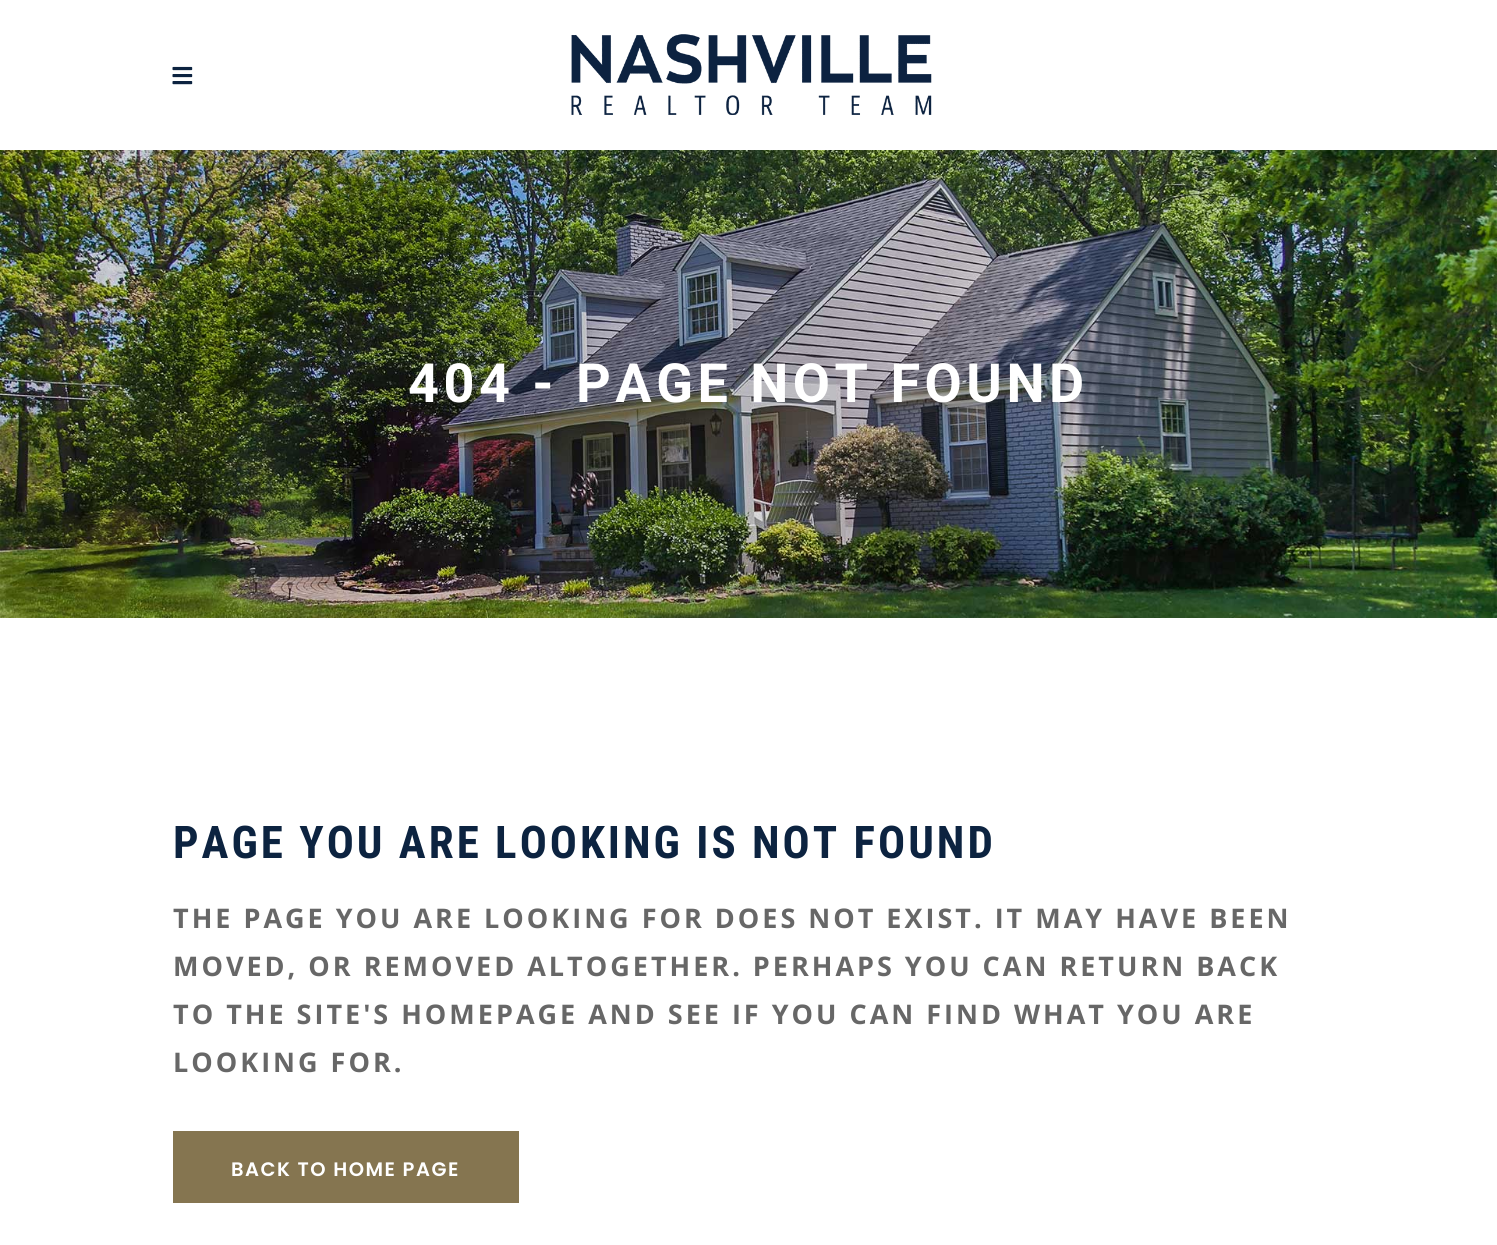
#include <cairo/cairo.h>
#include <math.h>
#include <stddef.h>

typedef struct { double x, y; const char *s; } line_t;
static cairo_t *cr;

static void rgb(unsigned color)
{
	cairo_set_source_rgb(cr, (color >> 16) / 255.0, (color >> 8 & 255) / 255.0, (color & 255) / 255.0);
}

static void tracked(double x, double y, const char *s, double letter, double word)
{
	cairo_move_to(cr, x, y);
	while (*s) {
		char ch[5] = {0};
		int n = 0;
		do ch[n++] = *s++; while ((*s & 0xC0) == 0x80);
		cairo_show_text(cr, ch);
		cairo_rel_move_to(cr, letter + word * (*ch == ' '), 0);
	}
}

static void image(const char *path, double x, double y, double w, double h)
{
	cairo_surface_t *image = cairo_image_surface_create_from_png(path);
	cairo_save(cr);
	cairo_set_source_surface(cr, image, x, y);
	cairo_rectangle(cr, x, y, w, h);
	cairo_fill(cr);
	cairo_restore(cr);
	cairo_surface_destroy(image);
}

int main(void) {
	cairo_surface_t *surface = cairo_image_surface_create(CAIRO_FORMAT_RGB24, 1497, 1245);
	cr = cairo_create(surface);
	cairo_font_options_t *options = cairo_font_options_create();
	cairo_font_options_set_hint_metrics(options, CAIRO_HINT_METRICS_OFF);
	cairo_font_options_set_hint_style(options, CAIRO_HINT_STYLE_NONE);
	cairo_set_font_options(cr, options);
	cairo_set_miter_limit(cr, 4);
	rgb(0xffffff);
	cairo_paint(cr);
	image("img/1.png", 172, 66, 21, 19);
	image("img/2.png", 571, 34, 361, 81);
	image("img/3.png", 0, 150, 1497, 468);
	rgb(0x857550);
	cairo_rectangle(cr, 173, 1131, 346, 72);
	cairo_fill(cr);
	cairo_select_font_face(cr, "Roboto", CAIRO_FONT_SLANT_NORMAL, CAIRO_FONT_WEIGHT_BOLD);
	cairo_set_font_size(cr, 54);
	rgb(0xffffff);
	tracked(408, 402, "404 - PAGE NOT FOUND", 4.5, 0);
	cairo_select_font_face(cr, "Roboto Condensed", CAIRO_FONT_SLANT_NORMAL, CAIRO_FONT_WEIGHT_BOLD);
	cairo_set_font_size(cr, 45);
	rgb(0x0c2340);
	tracked(173, 858, "PAGE YOU ARE LOOKING IS NOT FOUND", 3, 0);
	cairo_select_font_face(cr, "Open Sans", CAIRO_FONT_SLANT_NORMAL, CAIRO_FONT_WEIGHT_BOLD);
	cairo_set_font_size(cr, 27);
	rgb(0x676767);
	{
		static const line_t items[] = {
			{173, 928, "THE PAGE YOU ARE LOOKING FOR DOES NOT EXIST. IT MAY HAVE BEEN"},
			{173, 976, "MOVED, OR REMOVED ALTOGETHER. PERHAPS YOU CAN RETURN BACK"},
			{173, 1024, "TO THE SITE'S HOMEPAGE AND SEE IF YOU CAN FIND WHAT YOU ARE"},
			{173, 1072, "LOOKING FOR."},
		};
		for (size_t i = 0; i < sizeof items / sizeof *items; i++) {
			tracked(items[i].x, items[i].y, items[i].s, 3, 0);
		}
	}
	cairo_select_font_face(cr, "Poppins SemiBold", CAIRO_FONT_SLANT_NORMAL, CAIRO_FONT_WEIGHT_NORMAL);
	cairo_set_font_size(cr, 19.5);
	rgb(0xffffff);
	tracked(231, 1176, "BACK TO HOME PAGE", 1.5, 0);
	cairo_surface_write_to_png(surface, "page.png");
	cairo_font_options_destroy(options);
	cairo_destroy(cr);
	cairo_surface_destroy(surface);
	return 0;
}
